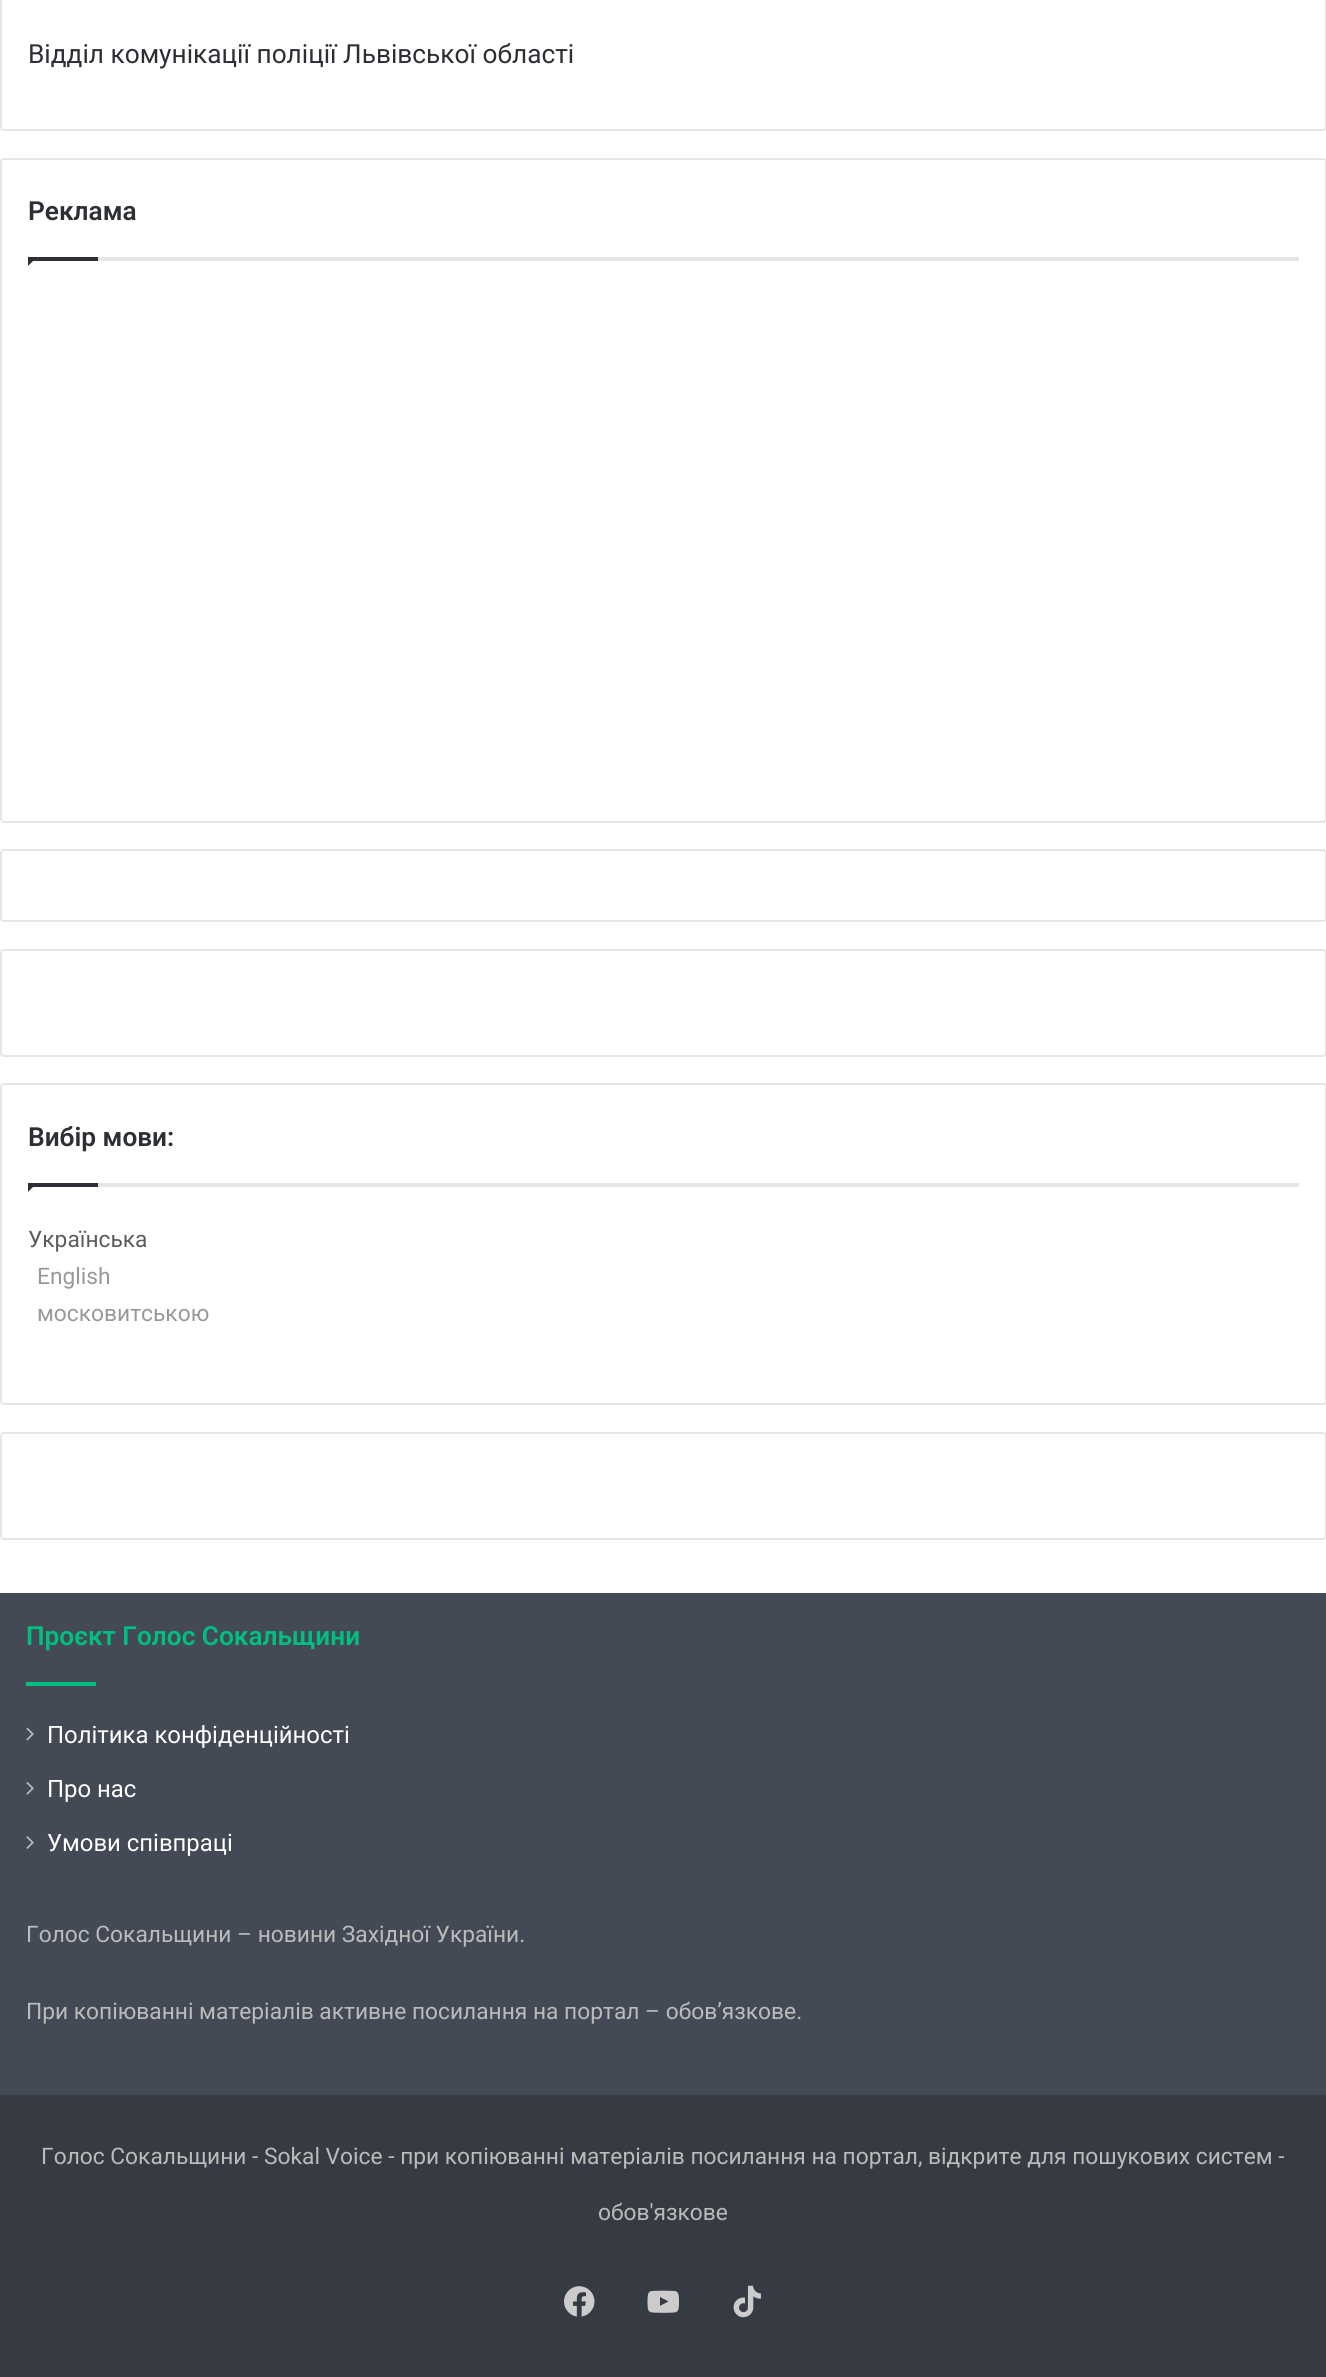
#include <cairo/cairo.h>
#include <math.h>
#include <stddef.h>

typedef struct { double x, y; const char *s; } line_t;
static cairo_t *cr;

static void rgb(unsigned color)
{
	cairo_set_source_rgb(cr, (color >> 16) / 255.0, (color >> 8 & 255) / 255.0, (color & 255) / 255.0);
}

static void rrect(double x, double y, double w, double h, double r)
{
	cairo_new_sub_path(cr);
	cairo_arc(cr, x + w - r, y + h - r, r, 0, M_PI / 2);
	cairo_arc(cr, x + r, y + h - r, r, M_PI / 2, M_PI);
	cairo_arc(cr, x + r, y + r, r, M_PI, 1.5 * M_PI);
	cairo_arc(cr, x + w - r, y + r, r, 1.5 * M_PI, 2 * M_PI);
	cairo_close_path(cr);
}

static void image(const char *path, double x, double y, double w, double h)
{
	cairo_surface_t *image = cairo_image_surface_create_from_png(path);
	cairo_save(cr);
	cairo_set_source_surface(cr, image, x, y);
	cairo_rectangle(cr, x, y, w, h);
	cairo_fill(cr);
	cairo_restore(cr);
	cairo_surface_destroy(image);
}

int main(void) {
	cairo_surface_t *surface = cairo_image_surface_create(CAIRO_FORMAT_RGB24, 1326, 2377);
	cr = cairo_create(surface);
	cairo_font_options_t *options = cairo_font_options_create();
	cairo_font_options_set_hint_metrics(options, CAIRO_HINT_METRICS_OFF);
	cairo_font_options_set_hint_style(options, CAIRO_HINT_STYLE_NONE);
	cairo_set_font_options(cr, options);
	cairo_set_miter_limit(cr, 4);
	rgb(0xffffff);
	cairo_paint(cr);
	rrect(1, -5, 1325, 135, 3);
	rgb(0xe6e6e6);
	cairo_stroke(cr);
	rrect(1, 159, 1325, 663, 3);
	cairo_stroke(cr);
	cairo_rectangle(cr, 98, 257, 1201, 4);
	cairo_fill(cr);
	rgb(0x2c2f34);
	cairo_new_path(cr);
	cairo_move_to(cr, 28, 257);
	cairo_line_to(cr, 37, 257);
	cairo_line_to(cr, 28, 266);
	cairo_close_path(cr);
	cairo_fill(cr);
	cairo_rectangle(cr, 28, 257, 70, 4);
	cairo_fill(cr);
	rrect(1, 850, 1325, 71, 3);
	rgb(0xe6e6e6);
	cairo_stroke(cr);
	rrect(1, 950, 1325, 106, 3);
	cairo_stroke(cr);
	rrect(1, 1084, 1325, 320, 3);
	cairo_stroke(cr);
	cairo_rectangle(cr, 98, 1183, 1201, 4);
	cairo_fill(cr);
	rgb(0x2c2f34);
	cairo_new_path(cr);
	cairo_move_to(cr, 28, 1183);
	cairo_line_to(cr, 37, 1183);
	cairo_line_to(cr, 28, 1192);
	cairo_close_path(cr);
	cairo_fill(cr);
	cairo_rectangle(cr, 28, 1183, 70, 4);
	cairo_fill(cr);
	rrect(1, 1433, 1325, 106, 3);
	rgb(0xe6e6e6);
	cairo_stroke(cr);
	rgb(0x434955);
	cairo_rectangle(cr, 0, 1593, 1326, 502);
	cairo_fill(cr);
	rgb(0x00bf80);
	cairo_rectangle(cr, 26, 1682, 70, 4);
	cairo_fill(cr);
	image("img/1.png", 26, 1727, 8, 14);
	image("img/2.png", 26, 1782, 8, 13);
	image("img/3.png", 26, 1836, 8, 13);
	rgb(0x363a42);
	cairo_rectangle(cr, 0, 2095, 1326, 282);
	cairo_fill(cr);
	image("img/4.png", 564, 2286, 31, 31);
	image("img/5.png", 647, 2290, 32, 23);
	image("img/6.png", 733, 2285, 28, 33);
	cairo_select_font_face(cr, "Roboto", CAIRO_FONT_SLANT_NORMAL, CAIRO_FONT_WEIGHT_NORMAL);
	cairo_set_font_size(cr, 26.25);
	rgb(0x2c2f34);
	cairo_move_to(cr, 28, 63);
	cairo_show_text(cr, "Відділ комунікації поліції Львівської області");
	cairo_select_font_face(cr, "Roboto SemiBold", CAIRO_FONT_SLANT_NORMAL, CAIRO_FONT_WEIGHT_NORMAL);
	cairo_move_to(cr, 28, 220);
	cairo_show_text(cr, "Реклама");
	cairo_move_to(cr, 28, 1146);
	cairo_show_text(cr, "Вибір мови:");
	cairo_select_font_face(cr, "Roboto", CAIRO_FONT_SLANT_NORMAL, CAIRO_FONT_WEIGHT_NORMAL);
	cairo_set_font_size(cr, 22.75);
	rgb(0x5c5c5c);
	cairo_move_to(cr, 28, 1247);
	cairo_show_text(cr, "Українська");
	rgb(0x999999);
	cairo_move_to(cr, 37, 1284);
	cairo_show_text(cr, "English");
	cairo_move_to(cr, 37, 1321);
	cairo_show_text(cr, "московитською");
	cairo_select_font_face(cr, "Roboto SemiBold", CAIRO_FONT_SLANT_NORMAL, CAIRO_FONT_WEIGHT_NORMAL);
	cairo_set_font_size(cr, 26.25);
	rgb(0x00bf80);
	cairo_move_to(cr, 26, 1645);
	cairo_show_text(cr, "Проєкт Голос Сокальщини");
	cairo_select_font_face(cr, "Roboto", CAIRO_FONT_SLANT_NORMAL, CAIRO_FONT_WEIGHT_NORMAL);
	cairo_set_font_size(cr, 23.9);
	rgb(0xffffff);
	{
		static const line_t items[] = {
			{47, 1743, "Політика конфіденційності"},
			{47, 1797, "Про нас"},
			{47, 1851, "Умови співпраці"},
		};
		for (size_t i = 0; i < sizeof items / sizeof *items; i++) {
			cairo_move_to(cr, items[i].x, items[i].y);
			cairo_show_text(cr, items[i].s);
		}
	}
	cairo_set_font_size(cr, 22.75);
	rgb(0xbbbbbb);
	{
		static const line_t items[] = {
			{26, 1942, "Голос Сокальщини – новини Західної України."},
			{26, 2019, "При копіюванні матеріалів активне посилання на портал – обов’язкове."},
			{41, 2164, "Голос Сокальщини - Sokal Voice - при копіюванні матеріалів посилання на портал, відкрите для пошукових систем -"},
			{598, 2220, "обов'язкове"},
		};
		for (size_t i = 0; i < sizeof items / sizeof *items; i++) {
			cairo_move_to(cr, items[i].x, items[i].y);
			cairo_show_text(cr, items[i].s);
		}
	}
	cairo_surface_write_to_png(surface, "page.png");
	cairo_font_options_destroy(options);
	cairo_destroy(cr);
	cairo_surface_destroy(surface);
	return 0;
}
